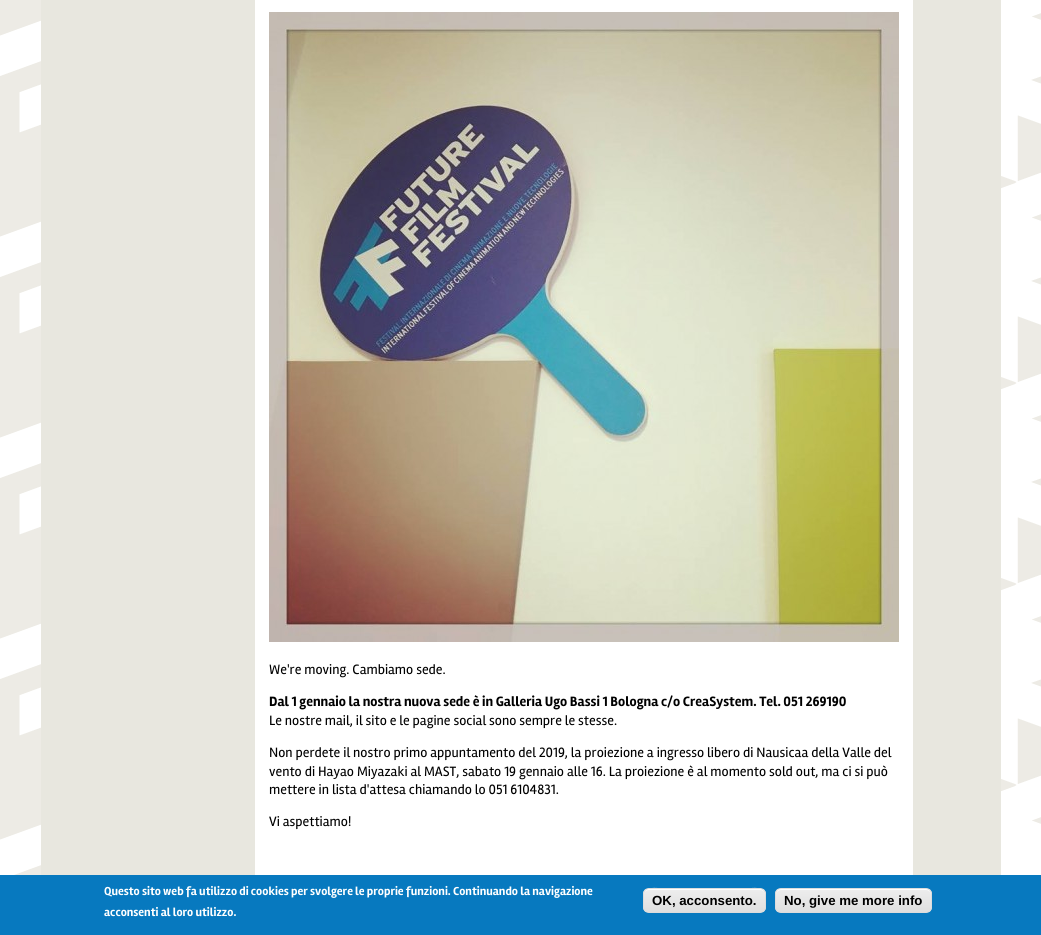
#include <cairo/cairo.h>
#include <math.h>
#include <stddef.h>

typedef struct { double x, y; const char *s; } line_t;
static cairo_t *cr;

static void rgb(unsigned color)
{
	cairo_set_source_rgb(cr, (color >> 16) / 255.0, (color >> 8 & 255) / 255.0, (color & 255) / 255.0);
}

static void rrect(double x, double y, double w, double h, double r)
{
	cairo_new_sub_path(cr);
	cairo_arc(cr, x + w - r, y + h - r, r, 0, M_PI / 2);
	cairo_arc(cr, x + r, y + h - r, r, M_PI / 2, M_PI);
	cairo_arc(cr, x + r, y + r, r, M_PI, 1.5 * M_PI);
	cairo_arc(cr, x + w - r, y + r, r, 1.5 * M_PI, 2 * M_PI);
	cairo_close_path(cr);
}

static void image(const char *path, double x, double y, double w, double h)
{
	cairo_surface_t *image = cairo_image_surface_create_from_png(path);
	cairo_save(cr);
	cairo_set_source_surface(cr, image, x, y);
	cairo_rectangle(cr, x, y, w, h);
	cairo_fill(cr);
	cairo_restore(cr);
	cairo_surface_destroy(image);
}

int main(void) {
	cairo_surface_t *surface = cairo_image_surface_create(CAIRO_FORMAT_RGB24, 1041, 935);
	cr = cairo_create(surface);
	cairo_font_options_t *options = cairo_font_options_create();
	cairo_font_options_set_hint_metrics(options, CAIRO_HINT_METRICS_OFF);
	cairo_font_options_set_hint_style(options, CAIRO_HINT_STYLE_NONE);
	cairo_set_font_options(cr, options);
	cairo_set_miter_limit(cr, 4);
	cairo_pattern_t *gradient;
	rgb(0xffffff);
	cairo_paint(cr);
	image("img/1.png", 0, 0, 1041, 875);
	rgb(0xe8e7df);
	cairo_rectangle(cr, 41, 0, 960, 875);
	cairo_fill(cr);
	rgb(0xffffff);
	cairo_rectangle(cr, 255, 0, 658, 875);
	cairo_fill(cr);
	image("img/2.png", 269, 12, 630, 630);
	rgb(0x0779bf);
	cairo_rectangle(cr, 0, 875, 1041, 60);
	cairo_fill(cr);
	cairo_save(cr);
	rrect(643, 888, 123, 25, 6);
	cairo_clip(cr);
	gradient = cairo_pattern_create_linear(705, 889, 705, 912);
	cairo_pattern_add_color_stop_rgba(gradient, 0.05, 0.929, 0.929, 0.929, 1);
	cairo_pattern_add_color_stop_rgba(gradient, 1, 0.875, 0.875, 0.875, 1);
	cairo_set_source(cr, gradient);
	cairo_pattern_destroy(gradient);
	cairo_rectangle(cr, 643, 889, 123, 23);
	cairo_fill(cr);
	cairo_restore(cr);
	rgb(0xffffff);
	cairo_new_path(cr);
	cairo_move_to(cr, 649, 890);
	cairo_line_to(cr, 760, 890);
	cairo_curve_to(cr, 763, 890, 765, 892, 765, 895);
	cairo_curve_to(cr, 765, 884, 746, 889, 742, 889);
	cairo_line_to(cr, 668, 889);
	cairo_curve_to(cr, 663, 889, 644, 884, 644, 895);
	cairo_curve_to(cr, 644, 892, 646, 890, 649, 890);
	cairo_close_path(cr);
	cairo_fill(cr);
	rrect(643.5, 888.5, 122, 24, 5.5);
	rgb(0xdcdcdc);
	cairo_set_line_width(cr, 1);
	cairo_stroke(cr);
	cairo_save(cr);
	rrect(775, 888, 157, 25, 6);
	cairo_clip(cr);
	gradient = cairo_pattern_create_linear(854, 889, 854, 912);
	cairo_pattern_add_color_stop_rgba(gradient, 0.05, 0.929, 0.929, 0.929, 1);
	cairo_pattern_add_color_stop_rgba(gradient, 1, 0.875, 0.875, 0.875, 1);
	cairo_set_source(cr, gradient);
	cairo_pattern_destroy(gradient);
	cairo_rectangle(cr, 775, 889, 157, 23);
	cairo_fill(cr);
	cairo_restore(cr);
	rgb(0xffffff);
	cairo_new_path(cr);
	cairo_move_to(cr, 781, 890);
	cairo_line_to(cr, 926, 890);
	cairo_curve_to(cr, 929, 890, 931, 892, 931, 895);
	cairo_line_to(cr, 931, 894);
	cairo_curve_to(cr, 931, 891, 929, 889, 926, 889);
	cairo_line_to(cr, 781, 889);
	cairo_curve_to(cr, 778, 889, 776, 891, 776, 894);
	cairo_line_to(cr, 776, 895);
	cairo_curve_to(cr, 776, 892, 778, 890, 781, 890);
	cairo_close_path(cr);
	cairo_fill(cr);
	rrect(775.5, 888.5, 156, 24, 5.5);
	rgb(0xdcdcdc);
	cairo_stroke(cr);
	cairo_select_font_face(cr, "Rambla", CAIRO_FONT_SLANT_NORMAL, CAIRO_FONT_WEIGHT_NORMAL);
	cairo_set_font_size(cr, 14);
	rgb(0x000000);
	cairo_move_to(cr, 269, 674);
	cairo_show_text(cr, "We're moving. Cambiamo sede.");
	cairo_select_font_face(cr, "Rambla", CAIRO_FONT_SLANT_NORMAL, CAIRO_FONT_WEIGHT_BOLD);
	cairo_move_to(cr, 269, 706);
	cairo_show_text(cr, "Dal 1 gennaio la nostra nuova sede è in Galleria Ugo Bassi 1 Bologna c/o CreaSystem. Tel. 051 269190");
	cairo_select_font_face(cr, "Rambla", CAIRO_FONT_SLANT_NORMAL, CAIRO_FONT_WEIGHT_NORMAL);
	{
		static const line_t items[] = {
			{269, 725, "Le nostre mail, il sito e le pagine social sono sempre le stesse."},
			{269, 757, "Non perdete il nostro primo appuntamento del 2019, la proiezione a ingresso libero di Nausicaa della Valle del"},
			{269, 776, "vento di Hayao Miyazaki al MAST, sabato 19 gennaio alle 16. La proiezione è al momento sold out, ma ci si può"},
			{269, 794, "mettere in lista d'attesa chiamando lo 051 6104831."},
			{269, 826, "Vi aspettiamo!"},
		};
		for (size_t i = 0; i < sizeof items / sizeof *items; i++) {
			cairo_move_to(cr, items[i].x, items[i].y);
			cairo_show_text(cr, items[i].s);
		}
	}
	cairo_select_font_face(cr, "Rambla", CAIRO_FONT_SLANT_NORMAL, CAIRO_FONT_WEIGHT_BOLD);
	cairo_set_font_size(cr, 12);
	rgb(0xffffff);
	cairo_move_to(cr, 104, 895);
	cairo_show_text(cr, "Questo sito web fa utilizzo di cookies per svolgere le proprie funzioni. Continuando la navigazione");
	cairo_move_to(cr, 104, 916);
	cairo_show_text(cr, "acconsenti al loro utilizzo.");
	cairo_select_font_face(cr, "Liberation Sans", CAIRO_FONT_SLANT_NORMAL, CAIRO_FONT_WEIGHT_BOLD);
	cairo_set_font_size(cr, 13.25);
	rgb(0x000000);
	cairo_move_to(cr, 652, 905);
	cairo_show_text(cr, "OK, acconsento.");
	cairo_move_to(cr, 784, 905);
	cairo_show_text(cr, "No, give me more info");
	cairo_surface_write_to_png(surface, "page.png");
	cairo_font_options_destroy(options);
	cairo_destroy(cr);
	cairo_surface_destroy(surface);
	return 0;
}
